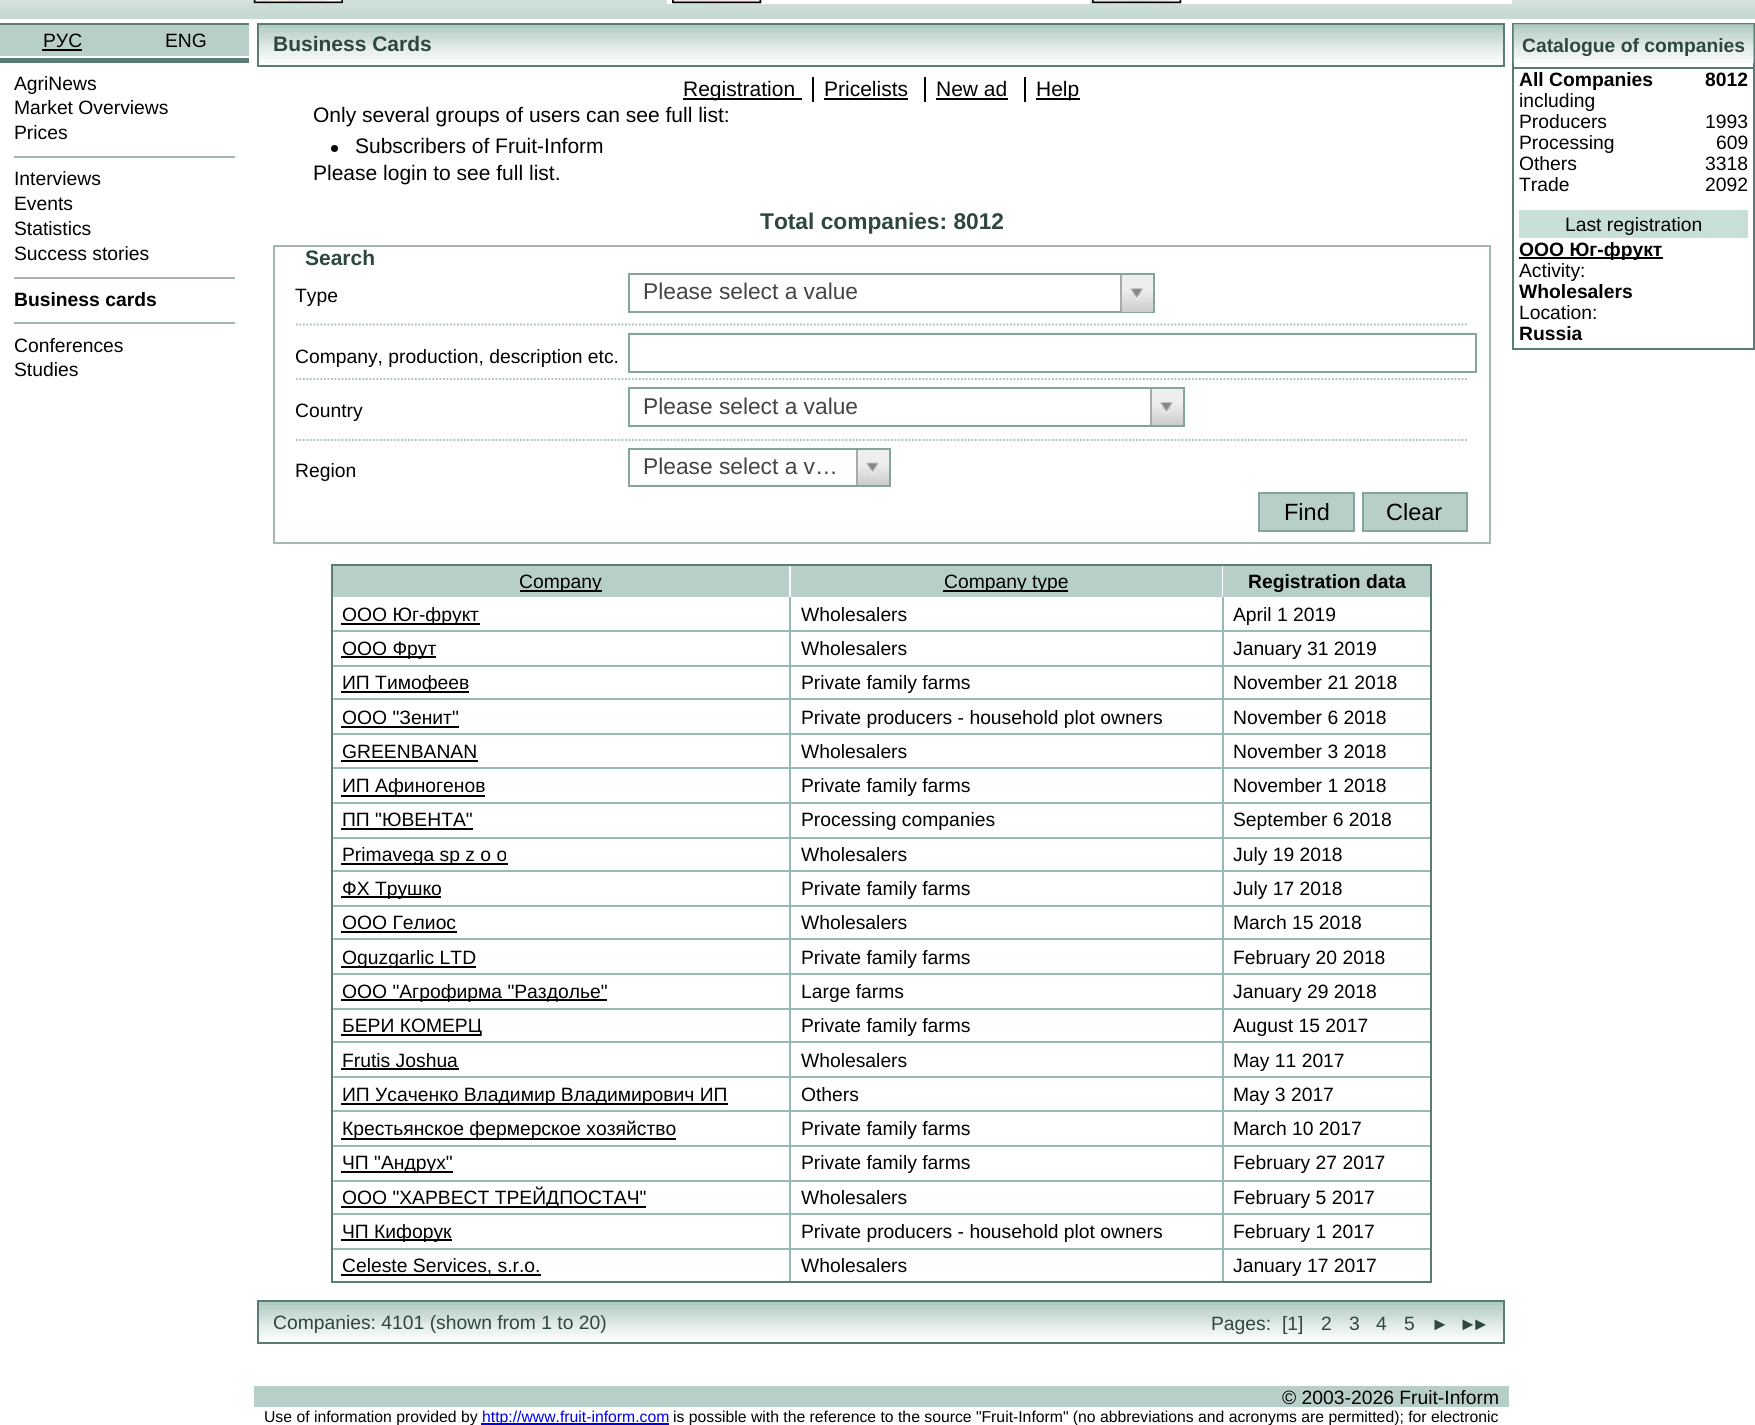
#include <cairo/cairo.h>
#include <math.h>
#include <stddef.h>

typedef struct { double x, y; const char *s; } line_t;
typedef struct { double x, y, w, h; unsigned color; } box_t;
static cairo_t *cr;

static void rgb(unsigned color)
{
	cairo_set_source_rgb(cr, (color >> 16) / 255.0, (color >> 8 & 255) / 255.0, (color & 255) / 255.0);
}

static void tracked(double x, double y, const char *s, double letter, double word)
{
	cairo_move_to(cr, x, y);
	while (*s) {
		char ch[5] = {0};
		int n = 0;
		do ch[n++] = *s++; while ((*s & 0xC0) == 0x80);
		cairo_show_text(cr, ch);
		cairo_rel_move_to(cr, letter + word * (*ch == ' '), 0);
	}
}

static void image(const char *path, double x, double y, double w, double h)
{
	cairo_surface_t *image = cairo_image_surface_create_from_png(path);
	cairo_save(cr);
	cairo_set_source_surface(cr, image, x, y);
	cairo_rectangle(cr, x, y, w, h);
	cairo_fill(cr);
	cairo_restore(cr);
	cairo_surface_destroy(image);
}

int main(void) {
	cairo_surface_t *surface = cairo_image_surface_create(CAIRO_FORMAT_RGB24, 1755, 1425);
	cr = cairo_create(surface);
	cairo_font_options_t *options = cairo_font_options_create();
	cairo_font_options_set_hint_metrics(options, CAIRO_HINT_METRICS_OFF);
	cairo_font_options_set_hint_style(options, CAIRO_HINT_STYLE_NONE);
	cairo_set_font_options(cr, options);
	cairo_set_miter_limit(cr, 4);
	cairo_pattern_t *gradient;
	rgb(0xffffff);
	cairo_paint(cr);
	image("img/1.png", 0, 0, 1755, 19);
	rgb(0xcfe0da);
	cairo_rectangle(cr, 343, 0, 324, 3);
	cairo_fill(cr);
	rgb(0xffffff);
	cairo_rectangle(cr, 254, 3, 89, 1);
	cairo_fill(cr);
	image("img/2.png", 253, 0, 90, 4);
	{
		static const box_t items[] = {
			{667, 0, 5, 4, 0xffffff},
			{761, 0, 329, 4, 0xffffff},
			{672, 3, 89, 1, 0xffffff},
		};
		for (size_t i = 0; i < sizeof items / sizeof *items; i++) {
			rgb(items[i].color);
			cairo_rectangle(cr, items[i].x, items[i].y, items[i].w, items[i].h);
			cairo_fill(cr);
		}
	}
	image("img/3.png", 672, 0, 90, 4);
	cairo_rectangle(cr, 1181, 0, 331, 4);
	cairo_fill(cr);
	cairo_rectangle(cr, 1092, 3, 89, 1);
	cairo_fill(cr);
	image("img/4.png", 1092, 0, 90, 4);
	{
		static const box_t items[] = {
			{0, 25, 249, 31, 0xb8cfc9},
			{0, 23, 249, 2, 0x597d74},
			{42, 49, 40, 2, 0x000000},
			{0, 58, 249, 5, 0x597d74},
			{14, 156, 221, 2, 0xa2b8b2},
			{14, 277, 221, 2, 0xa2b8b2},
			{14, 322, 221, 2, 0xa2b8b2},
		};
		for (size_t i = 0; i < sizeof items / sizeof *items; i++) {
			rgb(items[i].color);
			cairo_rectangle(cr, items[i].x, items[i].y, items[i].w, items[i].h);
			cairo_fill(cr);
		}
	}
	image("img/5.png", 259, 25, 1244, 38);
	cairo_rectangle(cr, 258, 24, 1246, 42);
	rgb(0x597d74);
	cairo_stroke(cr);
	{
		static const box_t items[] = {
			{812, 77, 2, 25, 0x000000},
			{683, 98, 119, 2, 0x000000},
			{924, 77, 2, 25, 0x000000},
			{824, 98, 84, 2, 0x000000},
			{1024, 77, 2, 25, 0x000000},
			{936, 98, 72, 2, 0x000000},
			{1036, 98, 44, 2, 0x000000},
		};
		for (size_t i = 0; i < sizeof items / sizeof *items; i++) {
			rgb(items[i].color);
			cairo_rectangle(cr, items[i].x, items[i].y, items[i].w, items[i].h);
			cairo_fill(cr);
		}
	}
	cairo_arc(cr, 334.5, 148.5, 3.5, 0, 2 * M_PI);
	cairo_fill(cr);
	cairo_rectangle(cr, 274, 246, 1216, 297);
	rgb(0xa2b8b2);
	cairo_stroke(cr);
	cairo_rectangle(cr, 629, 274, 525, 38);
	rgb(0x84a59d);
	cairo_stroke(cr);
	gradient = cairo_pattern_create_linear(1122, 312, 1122, 275);
	cairo_pattern_add_color_stop_rgba(gradient, 0, 0.8, 0.8, 0.8, 1);
	cairo_pattern_add_color_stop_rgba(gradient, 0.6, 0.933, 0.933, 0.933, 1);
	cairo_set_source(cr, gradient);
	cairo_pattern_destroy(gradient);
	cairo_rectangle(cr, 1122, 275, 31, 37);
	cairo_fill(cr);
	rgb(0xaaaaaa);
	cairo_rectangle(cr, 1120, 275, 2, 37);
	cairo_fill(cr);
	image("img/6.png", 1130, 288, 14, 12);
	cairo_new_path(cr);
	cairo_move_to(cr, 296, 324.5);
	cairo_line_to(cr, 1468, 324.5);
	rgb(0xa2b8b2);
	cairo_set_line_width(cr, 1.8);
	cairo_set_dash(cr, (double[]){1.75, 1.75}, 2, 0);
	cairo_stroke(cr);
	cairo_rectangle(cr, 629, 334, 847, 38);
	rgb(0x84a59d);
	cairo_set_line_width(cr, 2);
	cairo_set_dash(cr, NULL, 0, 0);
	cairo_stroke(cr);
	cairo_new_path(cr);
	cairo_move_to(cr, 296, 379);
	cairo_line_to(cr, 1468, 379);
	rgb(0xa2b8b2);
	cairo_set_line_width(cr, 1.8);
	cairo_set_dash(cr, (double[]){1.75, 1.75}, 2, 0);
	cairo_stroke(cr);
	cairo_rectangle(cr, 629, 388, 555, 38);
	rgb(0x84a59d);
	cairo_set_line_width(cr, 2);
	cairo_set_dash(cr, NULL, 0, 0);
	cairo_stroke(cr);
	gradient = cairo_pattern_create_linear(1152, 425, 1152, 389);
	cairo_pattern_add_color_stop_rgba(gradient, 0, 0.8, 0.8, 0.8, 1);
	cairo_pattern_add_color_stop_rgba(gradient, 0.6, 0.933, 0.933, 0.933, 1);
	cairo_set_source(cr, gradient);
	cairo_pattern_destroy(gradient);
	cairo_rectangle(cr, 1152, 389, 31, 36);
	cairo_fill(cr);
	rgb(0xaaaaaa);
	cairo_rectangle(cr, 1150, 389, 2, 36);
	cairo_fill(cr);
	image("img/7.png", 1160, 402, 13, 12);
	cairo_new_path(cr);
	cairo_move_to(cr, 296, 440);
	cairo_line_to(cr, 1468, 440);
	rgb(0xa2b8b2);
	cairo_set_line_width(cr, 1.8);
	cairo_set_dash(cr, (double[]){1.75, 1.75}, 2, 0);
	cairo_stroke(cr);
	cairo_rectangle(cr, 629, 449, 261, 37);
	rgb(0x84a59d);
	cairo_set_line_width(cr, 2);
	cairo_set_dash(cr, NULL, 0, 0);
	cairo_stroke(cr);
	gradient = cairo_pattern_create_linear(858, 485, 858, 450);
	cairo_pattern_add_color_stop_rgba(gradient, 0, 0.8, 0.8, 0.8, 1);
	cairo_pattern_add_color_stop_rgba(gradient, 0.6, 0.933, 0.933, 0.933, 1);
	cairo_set_source(cr, gradient);
	cairo_pattern_destroy(gradient);
	cairo_rectangle(cr, 858, 450, 31, 35);
	cairo_fill(cr);
	rgb(0xaaaaaa);
	cairo_rectangle(cr, 856, 450, 2, 35);
	cairo_fill(cr);
	image("img/8.png", 866, 462, 13, 12);
	rgb(0xb8cfc9);
	cairo_rectangle(cr, 1259, 493, 95, 38);
	cairo_fill_preserve(cr);
	rgb(0x84a59d);
	cairo_stroke(cr);
	rgb(0xb8cfc9);
	cairo_rectangle(cr, 1363, 493, 104, 38);
	cairo_fill_preserve(cr);
	rgb(0x84a59d);
	cairo_stroke(cr);
	{
		static const box_t items[] = {
			{333, 566, 456, 31, 0xb8cfc9},
			{520, 590, 82, 2, 0x000000},
			{791, 566, 431, 31, 0xb8cfc9},
			{943, 590, 125, 2, 0x000000},
			{1223, 566, 207, 31, 0xb8cfc9},
			{789, 597, 2, 171, 0x97bab4},
			{333, 630, 458, 2, 0x97bab4},
			{341, 623, 139, 2, 0x000000},
			{1222, 597, 2, 171, 0x97bab4},
			{791, 630, 639, 2, 0x97bab4},
			{333, 665, 1097, 2, 0x97bab4},
			{341, 656, 95, 2, 0x000000},
			{333, 698, 1097, 2, 0x97bab4},
			{341, 691, 128, 2, 0x000000},
			{333, 733, 1097, 2, 0x97bab4},
			{341, 726, 118, 2, 0x000000},
			{333, 767, 1097, 2, 0x97bab4},
			{341, 760, 137, 2, 0x000000},
			{789, 768, 2, 35, 0x97bab4},
			{333, 802, 458, 2, 0x97bab4},
			{341, 795, 144, 2, 0x000000},
			{1222, 768, 2, 35, 0x97bab4},
			{791, 802, 639, 2, 0x97bab4},
			{789, 803, 2, 35, 0x97bab4},
			{333, 837, 458, 2, 0x97bab4},
			{341, 828, 132, 2, 0x000000},
			{1222, 803, 2, 35, 0x97bab4},
			{791, 837, 639, 2, 0x97bab4},
			{789, 838, 2, 273, 0x97bab4},
			{333, 870, 458, 2, 0x97bab4},
			{341, 863, 167, 2, 0x000000},
			{1222, 838, 2, 273, 0x97bab4},
			{791, 870, 639, 2, 0x97bab4},
			{333, 905, 1097, 2, 0x97bab4},
			{341, 896, 100, 2, 0x000000},
			{333, 938, 1097, 2, 0x97bab4},
			{341, 931, 116, 2, 0x000000},
			{333, 973, 1097, 2, 0x97bab4},
			{341, 966, 135, 2, 0x000000},
			{333, 1008, 1097, 2, 0x97bab4},
			{341, 999, 266, 2, 0x000000},
			{333, 1041, 1097, 2, 0x97bab4},
			{341, 1034, 140, 2, 0x000000},
			{333, 1076, 1097, 2, 0x97bab4},
			{341, 1068, 118, 2, 0x000000},
			{333, 1110, 1097, 2, 0x97bab4},
			{341, 1103, 387, 2, 0x000000},
			{789, 1111, 2, 35, 0x97bab4},
			{333, 1145, 458, 2, 0x97bab4},
			{341, 1138, 335, 2, 0x000000},
			{1222, 1111, 2, 35, 0x97bab4},
			{791, 1145, 639, 2, 0x97bab4},
			{789, 1146, 2, 35, 0x97bab4},
			{333, 1180, 458, 2, 0x97bab4},
			{341, 1171, 112, 2, 0x000000},
			{1222, 1146, 2, 35, 0x97bab4},
			{791, 1180, 639, 2, 0x97bab4},
			{789, 1181, 2, 100, 0x97bab4},
			{333, 1213, 458, 2, 0x97bab4},
			{341, 1206, 305, 2, 0x000000},
			{1222, 1181, 2, 100, 0x97bab4},
			{791, 1213, 639, 2, 0x97bab4},
			{333, 1248, 1097, 2, 0x97bab4},
			{341, 1239, 111, 2, 0x000000},
			{341, 1274, 200, 2, 0x000000},
		};
		for (size_t i = 0; i < sizeof items / sizeof *items; i++) {
			rgb(items[i].color);
			cairo_rectangle(cr, items[i].x, items[i].y, items[i].w, items[i].h);
			cairo_fill(cr);
		}
	}
	cairo_rectangle(cr, 332, 565, 1099, 717);
	rgb(0x597d74);
	cairo_stroke(cr);
	image("img/9.png", 259, 1302, 1244, 38);
	cairo_rectangle(cr, 258, 1301, 1246, 42);
	cairo_stroke(cr);
	cairo_rectangle(cr, 1513, 24, 241, 325);
	cairo_stroke(cr);
	image("img/10.png", 1513, 24, 241, 39);
	{
		static const box_t items[] = {
			{1514, 67, 240, 2, 0x597d74},
			{1519, 210, 229, 28, 0xc8dfd9},
			{1519, 257, 144, 2, 0x000000},
			{254, 1386, 1255, 21, 0xb8cfc9},
			{481, 1423, 188, 2, 0x0000ee},
		};
		for (size_t i = 0; i < sizeof items / sizeof *items; i++) {
			rgb(items[i].color);
			cairo_rectangle(cr, items[i].x, items[i].y, items[i].w, items[i].h);
			cairo_fill(cr);
		}
	}
	cairo_select_font_face(cr, "Liberation Sans", CAIRO_FONT_SLANT_NORMAL, CAIRO_FONT_WEIGHT_NORMAL);
	cairo_set_font_size(cr, 19.3);
	rgb(0x000000);
	{
		static const line_t items[] = {
			{43, 47, "РУС"},
			{165, 47, "ENG"},
			{14, 90, "AgriNews"},
			{14, 114, "Market Overviews"},
			{14, 139, "Prices"},
			{14, 185, "Interviews"},
			{14, 210, "Events"},
			{14, 235, "Statistics"},
			{14, 260, "Success stories"},
		};
		for (size_t i = 0; i < sizeof items / sizeof *items; i++) {
			cairo_move_to(cr, items[i].x, items[i].y);
			cairo_show_text(cr, items[i].s);
		}
	}
	cairo_select_font_face(cr, "Liberation Sans", CAIRO_FONT_SLANT_NORMAL, CAIRO_FONT_WEIGHT_BOLD);
	cairo_move_to(cr, 14, 306);
	cairo_show_text(cr, "Business cards");
	cairo_select_font_face(cr, "Liberation Sans", CAIRO_FONT_SLANT_NORMAL, CAIRO_FONT_WEIGHT_NORMAL);
	cairo_move_to(cr, 14, 352);
	cairo_show_text(cr, "Conferences");
	cairo_move_to(cr, 14, 376);
	cairo_show_text(cr, "Studies");
	cairo_select_font_face(cr, "Liberation Sans", CAIRO_FONT_SLANT_NORMAL, CAIRO_FONT_WEIGHT_BOLD);
	cairo_set_font_size(cr, 21);
	rgb(0x2e4741);
	cairo_move_to(cr, 273, 51);
	cairo_show_text(cr, "Business Cards");
	cairo_select_font_face(cr, "Liberation Sans", CAIRO_FONT_SLANT_NORMAL, CAIRO_FONT_WEIGHT_NORMAL);
	rgb(0x000000);
	{
		static const line_t items[] = {
			{683, 96, "Registration"},
			{824, 96, "Pricelists"},
			{936, 96, "New ad"},
			{1036, 96, "Help"},
			{313, 122, "Only several groups of users can see full list:"},
			{355, 153, "Subscribers of Fruit-Inform"},
			{313, 180, "Please login to see full list."},
		};
		for (size_t i = 0; i < sizeof items / sizeof *items; i++) {
			cairo_move_to(cr, items[i].x, items[i].y);
			cairo_show_text(cr, items[i].s);
		}
	}
	cairo_select_font_face(cr, "Liberation Sans", CAIRO_FONT_SLANT_NORMAL, CAIRO_FONT_WEIGHT_BOLD);
	cairo_set_font_size(cr, 22.75);
	rgb(0x2e4741);
	cairo_move_to(cr, 760, 229);
	cairo_show_text(cr, "Total companies: 8012");
	cairo_set_font_size(cr, 21);
	cairo_move_to(cr, 305, 265);
	cairo_show_text(cr, "Search");
	cairo_select_font_face(cr, "Liberation Sans", CAIRO_FONT_SLANT_NORMAL, CAIRO_FONT_WEIGHT_NORMAL);
	cairo_set_font_size(cr, 19.3);
	rgb(0x000000);
	cairo_move_to(cr, 295, 302);
	cairo_show_text(cr, "Type");
	cairo_set_font_size(cr, 22.75);
	rgb(0x444444);
	cairo_move_to(cr, 643, 299);
	cairo_show_text(cr, "Please select a value");
	cairo_set_font_size(cr, 19.3);
	rgb(0x000000);
	cairo_move_to(cr, 295, 363);
	cairo_show_text(cr, "Company, production, description etc.");
	cairo_move_to(cr, 295, 417);
	cairo_show_text(cr, "Country");
	cairo_set_font_size(cr, 22.75);
	rgb(0x444444);
	cairo_move_to(cr, 643, 414);
	cairo_show_text(cr, "Please select a value");
	cairo_set_font_size(cr, 19.3);
	rgb(0x000000);
	cairo_move_to(cr, 295, 477);
	cairo_show_text(cr, "Region");
	cairo_set_font_size(cr, 22.75);
	rgb(0x444444);
	cairo_move_to(cr, 643, 474);
	cairo_show_text(cr, "Please select a v…");
	cairo_set_font_size(cr, 23.5);
	rgb(0x000000);
	cairo_move_to(cr, 1284, 520);
	cairo_show_text(cr, "Find");
	cairo_move_to(cr, 1386, 520);
	cairo_show_text(cr, "Clear");
	cairo_set_font_size(cr, 19.3);
	cairo_move_to(cr, 519, 588);
	cairo_show_text(cr, "Company");
	cairo_move_to(cr, 944, 588);
	cairo_show_text(cr, "Company type");
	cairo_select_font_face(cr, "Liberation Sans", CAIRO_FONT_SLANT_NORMAL, CAIRO_FONT_WEIGHT_BOLD);
	cairo_move_to(cr, 1248, 588);
	cairo_show_text(cr, "Registration data");
	cairo_select_font_face(cr, "Liberation Sans", CAIRO_FONT_SLANT_NORMAL, CAIRO_FONT_WEIGHT_NORMAL);
	{
		static const line_t items[] = {
			{342, 621, "ООО Юг-фрукт"},
			{801, 621, "Wholesalers"},
			{1233, 621, "April 1 2019"},
			{342, 655, "ООО Фрут"},
			{801, 655, "Wholesalers"},
			{1233, 655, "January 31 2019"},
			{342, 689, "ИП Тимофеев"},
			{801, 689, "Private family farms"},
			{1233, 689, "November 21 2018"},
			{342, 724, "ООО \"Зенит\""},
			{801, 724, "Private producers - household plot owners"},
			{1233, 724, "November 6 2018"},
			{342, 758, "GREENBANAN"},
			{801, 758, "Wholesalers"},
			{1233, 758, "November 3 2018"},
			{342, 792, "ИП Афиногенов"},
			{801, 792, "Private family farms"},
			{1233, 792, "November 1 2018"},
			{342, 826, "ПП \"ЮВЕНТА\""},
			{801, 826, "Processing companies"},
			{1233, 826, "September 6 2018"},
			{342, 861, "Primavega sp z o o"},
			{801, 861, "Wholesalers"},
			{1233, 861, "July 19 2018"},
			{342, 895, "ФХ Трушко"},
			{801, 895, "Private family farms"},
			{1233, 895, "July 17 2018"},
			{342, 929, "ООО Гелиос"},
			{801, 929, "Wholesalers"},
			{1233, 929, "March 15 2018"},
			{342, 964, "Oguzgarlic LTD"},
			{801, 964, "Private family farms"},
			{1233, 964, "February 20 2018"},
			{342, 998, "ООО \"Агрофирма \"Раздолье\""},
			{801, 998, "Large farms"},
			{1233, 998, "January 29 2018"},
			{342, 1032, "БЕРИ КОМЕРЦ"},
			{801, 1032, "Private family farms"},
			{1233, 1032, "August 15 2017"},
			{342, 1067, "Frutis Joshua"},
			{801, 1067, "Wholesalers"},
			{1233, 1067, "May 11 2017"},
			{342, 1101, "ИП Усаченко Владимир Владимирович ИП"},
			{801, 1101, "Others"},
			{1233, 1101, "May 3 2017"},
			{342, 1135, "Крестьянское фермерское хозяйство"},
			{801, 1135, "Private family farms"},
			{1233, 1135, "March 10 2017"},
			{342, 1169, "ЧП \"Андрух\""},
			{801, 1169, "Private family farms"},
			{1233, 1169, "February 27 2017"},
			{342, 1204, "ООО \"ХАРВЕСТ ТРЕЙДПОСТАЧ\""},
			{801, 1204, "Wholesalers"},
			{1233, 1204, "February 5 2017"},
			{342, 1238, "ЧП Кифорук"},
			{801, 1238, "Private producers - household plot owners"},
			{1233, 1238, "February 1 2017"},
			{342, 1272, "Celeste Services, s.r.o."},
			{801, 1272, "Wholesalers"},
			{1233, 1272, "January 17 2017"},
		};
		for (size_t i = 0; i < sizeof items / sizeof *items; i++) {
			cairo_move_to(cr, items[i].x, items[i].y);
			cairo_show_text(cr, items[i].s);
		}
	}
	rgb(0x2e4741);
	{
		static const line_t items[] = {
			{273, 1329, "Companies: 4101 (shown from 1 to 20)"},
			{1211, 1330, "Pages:"},
			{1282, 1330, "[1]"},
			{1321, 1330, "2"},
			{1349, 1330, "3"},
			{1376, 1330, "4"},
			{1404, 1330, "5"},
		};
		for (size_t i = 0; i < sizeof items / sizeof *items; i++) {
			cairo_move_to(cr, items[i].x, items[i].y);
			cairo_show_text(cr, items[i].s);
		}
	}
	cairo_set_font_size(cr, 18);
	tracked(1431, 1330, "►", -5, 0);
	tracked(1459, 1330, "►►", -5, 0);
	cairo_select_font_face(cr, "Liberation Sans", CAIRO_FONT_SLANT_NORMAL, CAIRO_FONT_WEIGHT_BOLD);
	cairo_set_font_size(cr, 19.3);
	cairo_move_to(cr, 1522, 52);
	cairo_show_text(cr, "Catalogue of companies");
	rgb(0x000000);
	cairo_move_to(cr, 1519, 86);
	cairo_show_text(cr, "All Companies");
	cairo_move_to(cr, 1705, 86);
	cairo_show_text(cr, "8012");
	cairo_select_font_face(cr, "Liberation Sans", CAIRO_FONT_SLANT_NORMAL, CAIRO_FONT_WEIGHT_NORMAL);
	{
		static const line_t items[] = {
			{1519, 107, "including"},
			{1519, 128, "Producers"},
			{1705, 128, "1993"},
			{1519, 149, "Processing"},
			{1716, 149, "609"},
			{1519, 170, "Others"},
			{1705, 170, "3318"},
			{1519, 191, "Trade"},
			{1705, 191, "2092"},
			{1565, 231, "Last registration"},
		};
		for (size_t i = 0; i < sizeof items / sizeof *items; i++) {
			cairo_move_to(cr, items[i].x, items[i].y);
			cairo_show_text(cr, items[i].s);
		}
	}
	cairo_select_font_face(cr, "Liberation Sans", CAIRO_FONT_SLANT_NORMAL, CAIRO_FONT_WEIGHT_BOLD);
	cairo_move_to(cr, 1519, 256);
	cairo_show_text(cr, "ООО Юг-фрукт");
	cairo_select_font_face(cr, "Liberation Sans", CAIRO_FONT_SLANT_NORMAL, CAIRO_FONT_WEIGHT_NORMAL);
	cairo_move_to(cr, 1519, 277);
	cairo_show_text(cr, "Activity:");
	cairo_select_font_face(cr, "Liberation Sans", CAIRO_FONT_SLANT_NORMAL, CAIRO_FONT_WEIGHT_BOLD);
	cairo_move_to(cr, 1519, 298);
	cairo_show_text(cr, "Wholesalers");
	cairo_select_font_face(cr, "Liberation Sans", CAIRO_FONT_SLANT_NORMAL, CAIRO_FONT_WEIGHT_NORMAL);
	cairo_move_to(cr, 1519, 319);
	cairo_show_text(cr, "Location:");
	cairo_select_font_face(cr, "Liberation Sans", CAIRO_FONT_SLANT_NORMAL, CAIRO_FONT_WEIGHT_BOLD);
	cairo_move_to(cr, 1519, 340);
	cairo_show_text(cr, "Russia");
	cairo_select_font_face(cr, "Liberation Sans", CAIRO_FONT_SLANT_NORMAL, CAIRO_FONT_WEIGHT_NORMAL);
	cairo_move_to(cr, 1282, 1404);
	cairo_show_text(cr, "© 2003-2026 Fruit-Inform");
	cairo_set_font_size(cr, 15.75);
	cairo_move_to(cr, 264, 1422);
	cairo_show_text(cr, "Use of information provided by");
	rgb(0x0000ee);
	cairo_move_to(cr, 482, 1422);
	cairo_show_text(cr, "http://www.fruit-inform.com");
	rgb(0x000000);
	cairo_move_to(cr, 673, 1422);
	cairo_show_text(cr, "is possible with the reference to the source \"Fruit-Inform\" (no abbreviations and acronyms are permitted); for electronic");
	cairo_surface_write_to_png(surface, "page.png");
	cairo_font_options_destroy(options);
	cairo_destroy(cr);
	cairo_surface_destroy(surface);
	return 0;
}
